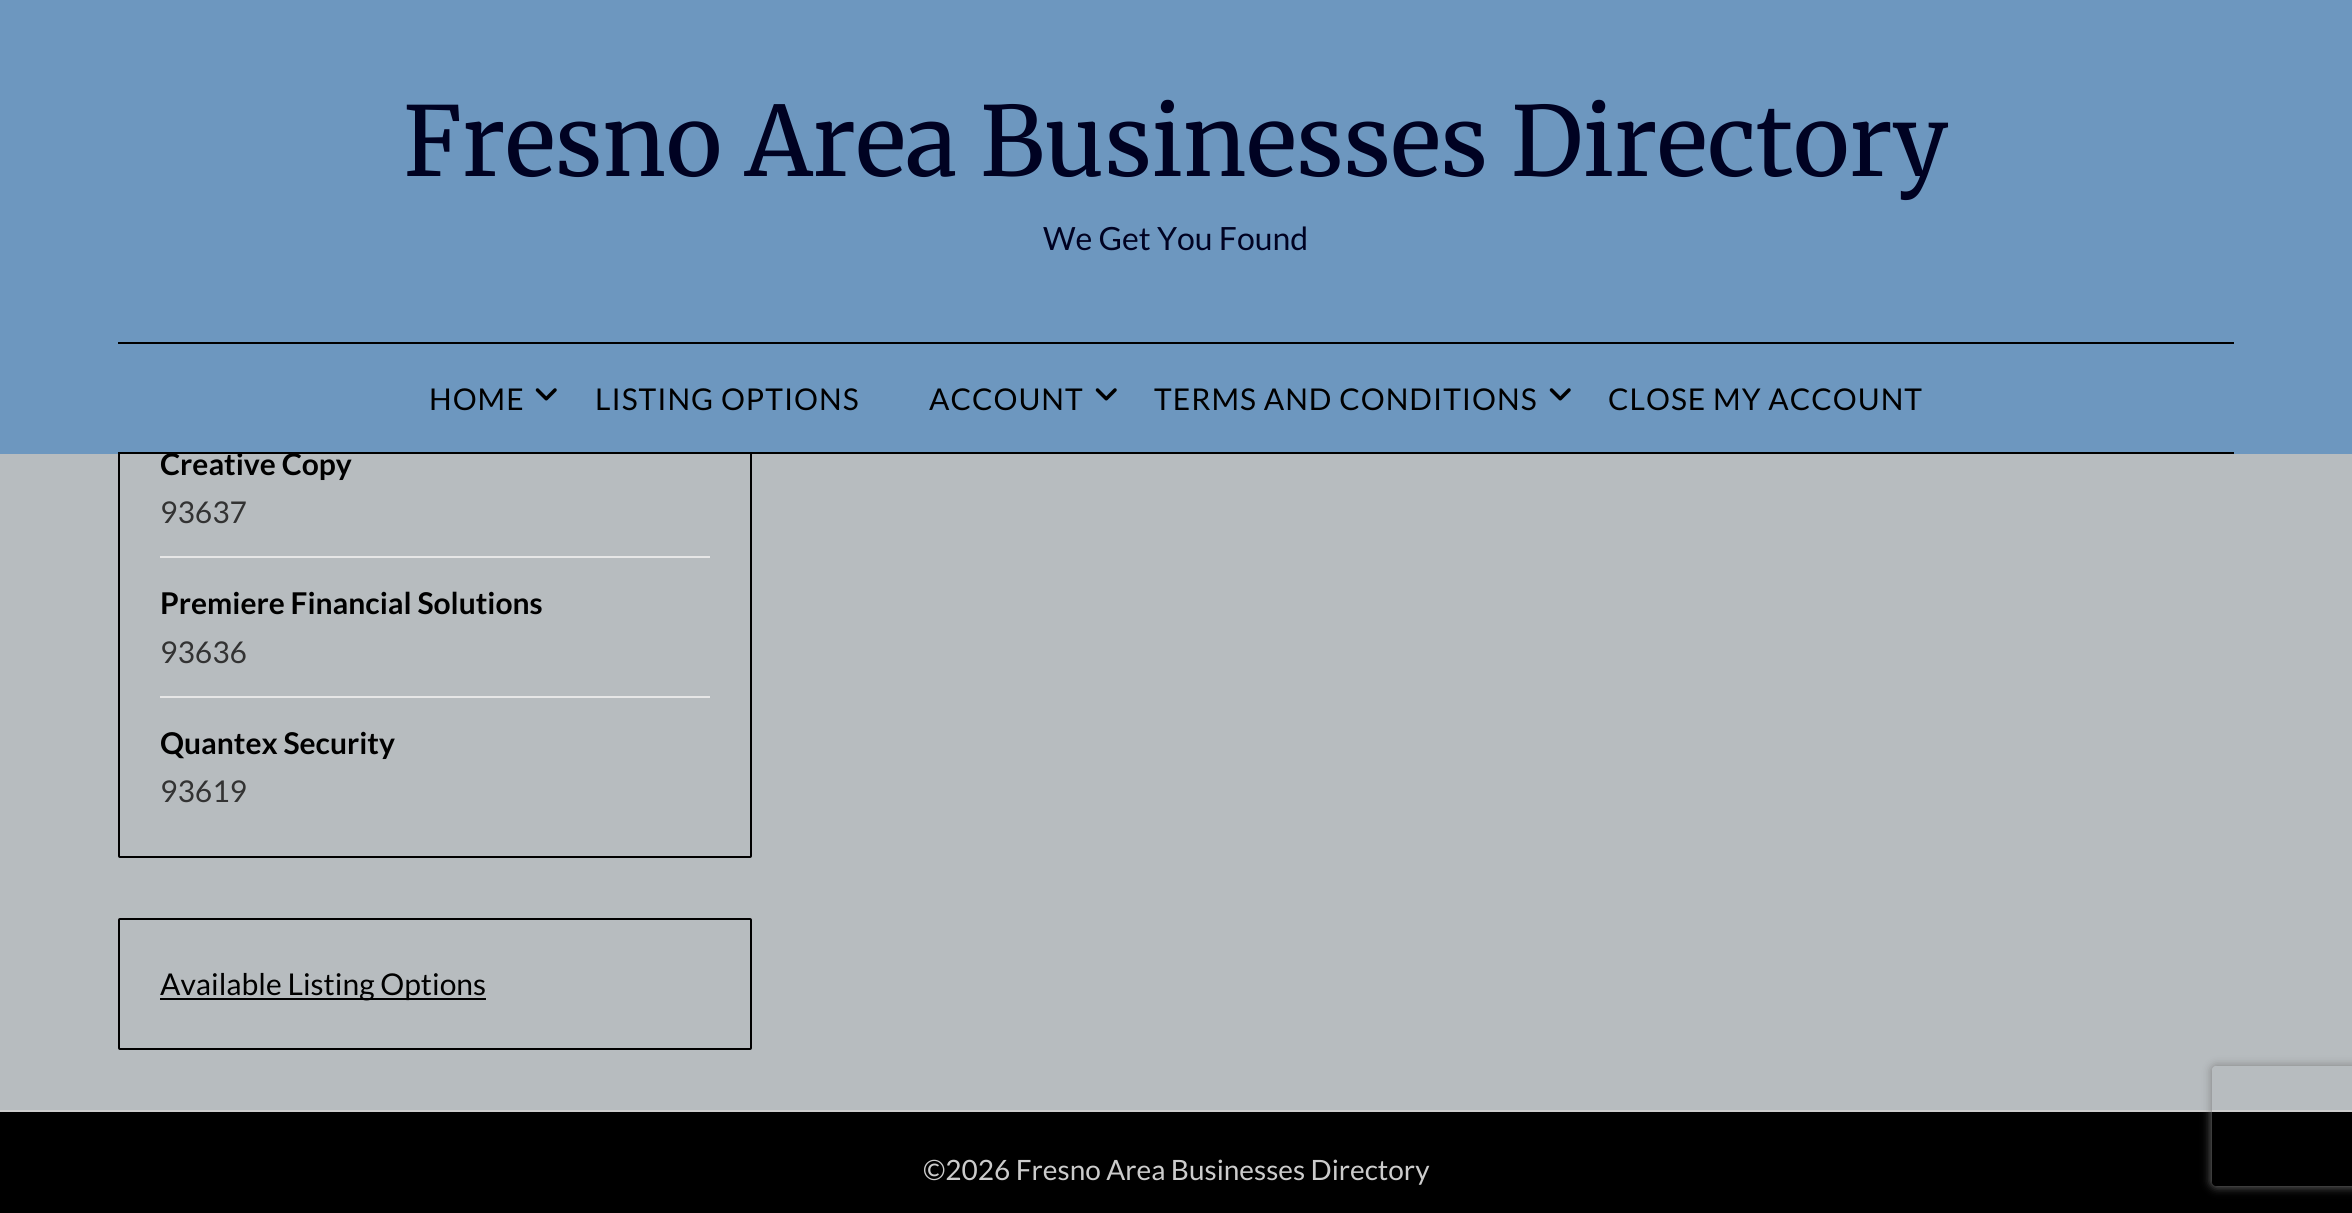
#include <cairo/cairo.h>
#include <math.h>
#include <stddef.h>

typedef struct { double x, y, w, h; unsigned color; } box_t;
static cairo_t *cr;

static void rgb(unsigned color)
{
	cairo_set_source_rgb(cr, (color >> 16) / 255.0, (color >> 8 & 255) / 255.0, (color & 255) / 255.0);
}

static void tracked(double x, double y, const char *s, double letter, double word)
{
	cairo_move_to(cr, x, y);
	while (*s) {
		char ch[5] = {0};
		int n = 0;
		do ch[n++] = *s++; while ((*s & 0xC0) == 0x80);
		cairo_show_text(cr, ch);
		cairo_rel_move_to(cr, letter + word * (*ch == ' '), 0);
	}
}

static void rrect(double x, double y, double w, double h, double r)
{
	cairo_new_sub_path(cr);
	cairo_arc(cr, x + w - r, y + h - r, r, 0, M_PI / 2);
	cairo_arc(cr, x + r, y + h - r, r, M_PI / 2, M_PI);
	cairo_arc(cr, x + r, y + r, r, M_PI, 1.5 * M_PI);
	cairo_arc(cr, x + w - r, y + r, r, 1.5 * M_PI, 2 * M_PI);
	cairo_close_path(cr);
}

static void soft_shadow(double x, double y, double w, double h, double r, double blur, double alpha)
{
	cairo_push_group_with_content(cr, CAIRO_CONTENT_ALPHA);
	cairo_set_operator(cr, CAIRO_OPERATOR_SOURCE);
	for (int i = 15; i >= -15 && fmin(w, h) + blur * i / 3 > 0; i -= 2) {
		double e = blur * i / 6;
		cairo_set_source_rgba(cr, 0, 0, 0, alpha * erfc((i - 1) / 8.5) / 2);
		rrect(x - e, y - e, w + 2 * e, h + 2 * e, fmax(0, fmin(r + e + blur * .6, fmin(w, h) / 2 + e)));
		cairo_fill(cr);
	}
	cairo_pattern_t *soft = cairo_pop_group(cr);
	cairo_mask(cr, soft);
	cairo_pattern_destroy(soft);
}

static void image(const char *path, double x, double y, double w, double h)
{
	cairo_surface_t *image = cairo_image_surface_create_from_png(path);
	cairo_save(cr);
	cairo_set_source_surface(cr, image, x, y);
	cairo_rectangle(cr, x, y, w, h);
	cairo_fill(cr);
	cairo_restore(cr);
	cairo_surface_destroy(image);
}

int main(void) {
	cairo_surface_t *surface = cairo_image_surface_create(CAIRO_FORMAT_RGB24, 2352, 1213);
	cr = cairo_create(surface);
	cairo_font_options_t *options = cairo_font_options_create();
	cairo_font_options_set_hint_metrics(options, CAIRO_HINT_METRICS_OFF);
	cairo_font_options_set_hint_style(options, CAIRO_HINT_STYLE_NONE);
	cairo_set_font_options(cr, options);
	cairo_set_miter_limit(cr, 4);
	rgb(0xb7bcbf);
	cairo_paint(cr);
	rrect(119, 79, 632, 778, 1);
	rgb(0x000000);
	cairo_stroke(cr);
	rgb(0xe6e6e6);
	cairo_rectangle(cr, 160, 556, 550, 2);
	cairo_fill(cr);
	cairo_rectangle(cr, 160, 696, 550, 2);
	cairo_fill(cr);
	rrect(119, 919, 632, 130, 1);
	rgb(0x000000);
	cairo_stroke(cr);
	{
		static const box_t items[] = {
			{160, 998, 326, 2, 0x000000},
			{0, 1112, 2352, 101, 0x000000},
			{0, 1110, 2352, 2, 0xcccccc},
		};
		for (size_t i = 0; i < sizeof items / sizeof *items; i++) {
			rgb(items[i].color);
			cairo_rectangle(cr, items[i].x, items[i].y, items[i].w, items[i].h);
			cairo_fill(cr);
		}
	}
	cairo_save(cr);
	cairo_set_fill_rule(cr, CAIRO_FILL_RULE_EVEN_ODD);
	cairo_new_path(cr);
	cairo_move_to(cr, 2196, 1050);
	cairo_line_to(cr, 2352, 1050);
	cairo_line_to(cr, 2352, 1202);
	cairo_line_to(cr, 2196, 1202);
	cairo_close_path(cr);
	cairo_move_to(cr, 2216, 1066);
	cairo_line_to(cr, 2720, 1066);
	cairo_curve_to(cr, 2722, 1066, 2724, 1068, 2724, 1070);
	cairo_line_to(cr, 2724, 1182);
	cairo_curve_to(cr, 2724, 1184, 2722, 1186, 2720, 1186);
	cairo_line_to(cr, 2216, 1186);
	cairo_curve_to(cr, 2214, 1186, 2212, 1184, 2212, 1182);
	cairo_line_to(cr, 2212, 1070);
	cairo_curve_to(cr, 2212, 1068, 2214, 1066, 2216, 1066);
	cairo_close_path(cr);
	cairo_clip(cr);
	rgb(0x808080);
	soft_shadow(2212, 1066, 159, 120, 4, 5, 1);
	cairo_restore(cr);
	cairo_select_font_face(cr, "Lato", CAIRO_FONT_SLANT_NORMAL, CAIRO_FONT_WEIGHT_BOLD);
	cairo_set_font_size(cr, 30);
	rgb(0x000000);
	cairo_move_to(cr, 160, 475);
	cairo_show_text(cr, "Creative Copy");
	rgb(0x6d97bf);
	cairo_rectangle(cr, 0, 0, 2352, 454);
	cairo_fill(cr);
	cairo_select_font_face(cr, "Lato", CAIRO_FONT_SLANT_NORMAL, CAIRO_FONT_WEIGHT_NORMAL);
	rgb(0x000000);
	tracked(1608, 410, "CLOSE MY ACCOUNT", 1, 0);
	image("img/1.png", 1549, 388, 22, 13);
	tracked(1154, 410, "TERMS AND CONDITIONS", 1, 0);
	image("img/1.png", 1095, 388, 22, 13);
	tracked(929, 410, "ACCOUNT", 1, 0);
	tracked(595, 410, "LISTING OPTIONS", 1, 0);
	image("img/1.png", 535, 388, 22, 13);
	tracked(429, 410, "HOME", 1, 0);
	cairo_rectangle(cr, 118, 452, 2116, 2);
	cairo_fill(cr);
	cairo_rectangle(cr, 118, 342, 2116, 2);
	cairo_fill(cr);
	cairo_set_font_size(cr, 32);
	rgb(0x000222);
	cairo_move_to(cr, 1043, 250);
	cairo_show_text(cr, "We Get You Found");
	cairo_select_font_face(cr, "Merriweather", CAIRO_FONT_SLANT_NORMAL, CAIRO_FONT_WEIGHT_NORMAL);
	cairo_set_font_size(cr, 96);
	cairo_move_to(cr, 403, 176);
	cairo_show_text(cr, "Fresno Area Businesses Directory");
	cairo_select_font_face(cr, "Lato", CAIRO_FONT_SLANT_NORMAL, CAIRO_FONT_WEIGHT_NORMAL);
	cairo_set_font_size(cr, 30);
	rgb(0x333333);
	cairo_move_to(cr, 160, 523);
	cairo_show_text(cr, "93637");
	cairo_select_font_face(cr, "Lato", CAIRO_FONT_SLANT_NORMAL, CAIRO_FONT_WEIGHT_BOLD);
	rgb(0x000000);
	cairo_move_to(cr, 160, 614);
	cairo_show_text(cr, "Premiere Financial Solutions");
	cairo_select_font_face(cr, "Lato", CAIRO_FONT_SLANT_NORMAL, CAIRO_FONT_WEIGHT_NORMAL);
	rgb(0x333333);
	cairo_move_to(cr, 160, 663);
	cairo_show_text(cr, "93636");
	cairo_select_font_face(cr, "Lato", CAIRO_FONT_SLANT_NORMAL, CAIRO_FONT_WEIGHT_BOLD);
	rgb(0x000000);
	cairo_move_to(cr, 160, 754);
	cairo_show_text(cr, "Quantex Security");
	cairo_select_font_face(cr, "Lato", CAIRO_FONT_SLANT_NORMAL, CAIRO_FONT_WEIGHT_NORMAL);
	rgb(0x333333);
	cairo_move_to(cr, 160, 802);
	cairo_show_text(cr, "93619");
	rgb(0x000000);
	cairo_move_to(cr, 160, 995);
	cairo_show_text(cr, "Available Listing Options");
	cairo_set_font_size(cr, 28);
	rgb(0xcccccc);
	cairo_move_to(cr, 923, 1180);
	cairo_show_text(cr, "©2026 Fresno Area Businesses Directory");
	cairo_surface_write_to_png(surface, "page.png");
	cairo_font_options_destroy(options);
	cairo_destroy(cr);
	cairo_surface_destroy(surface);
	return 0;
}
